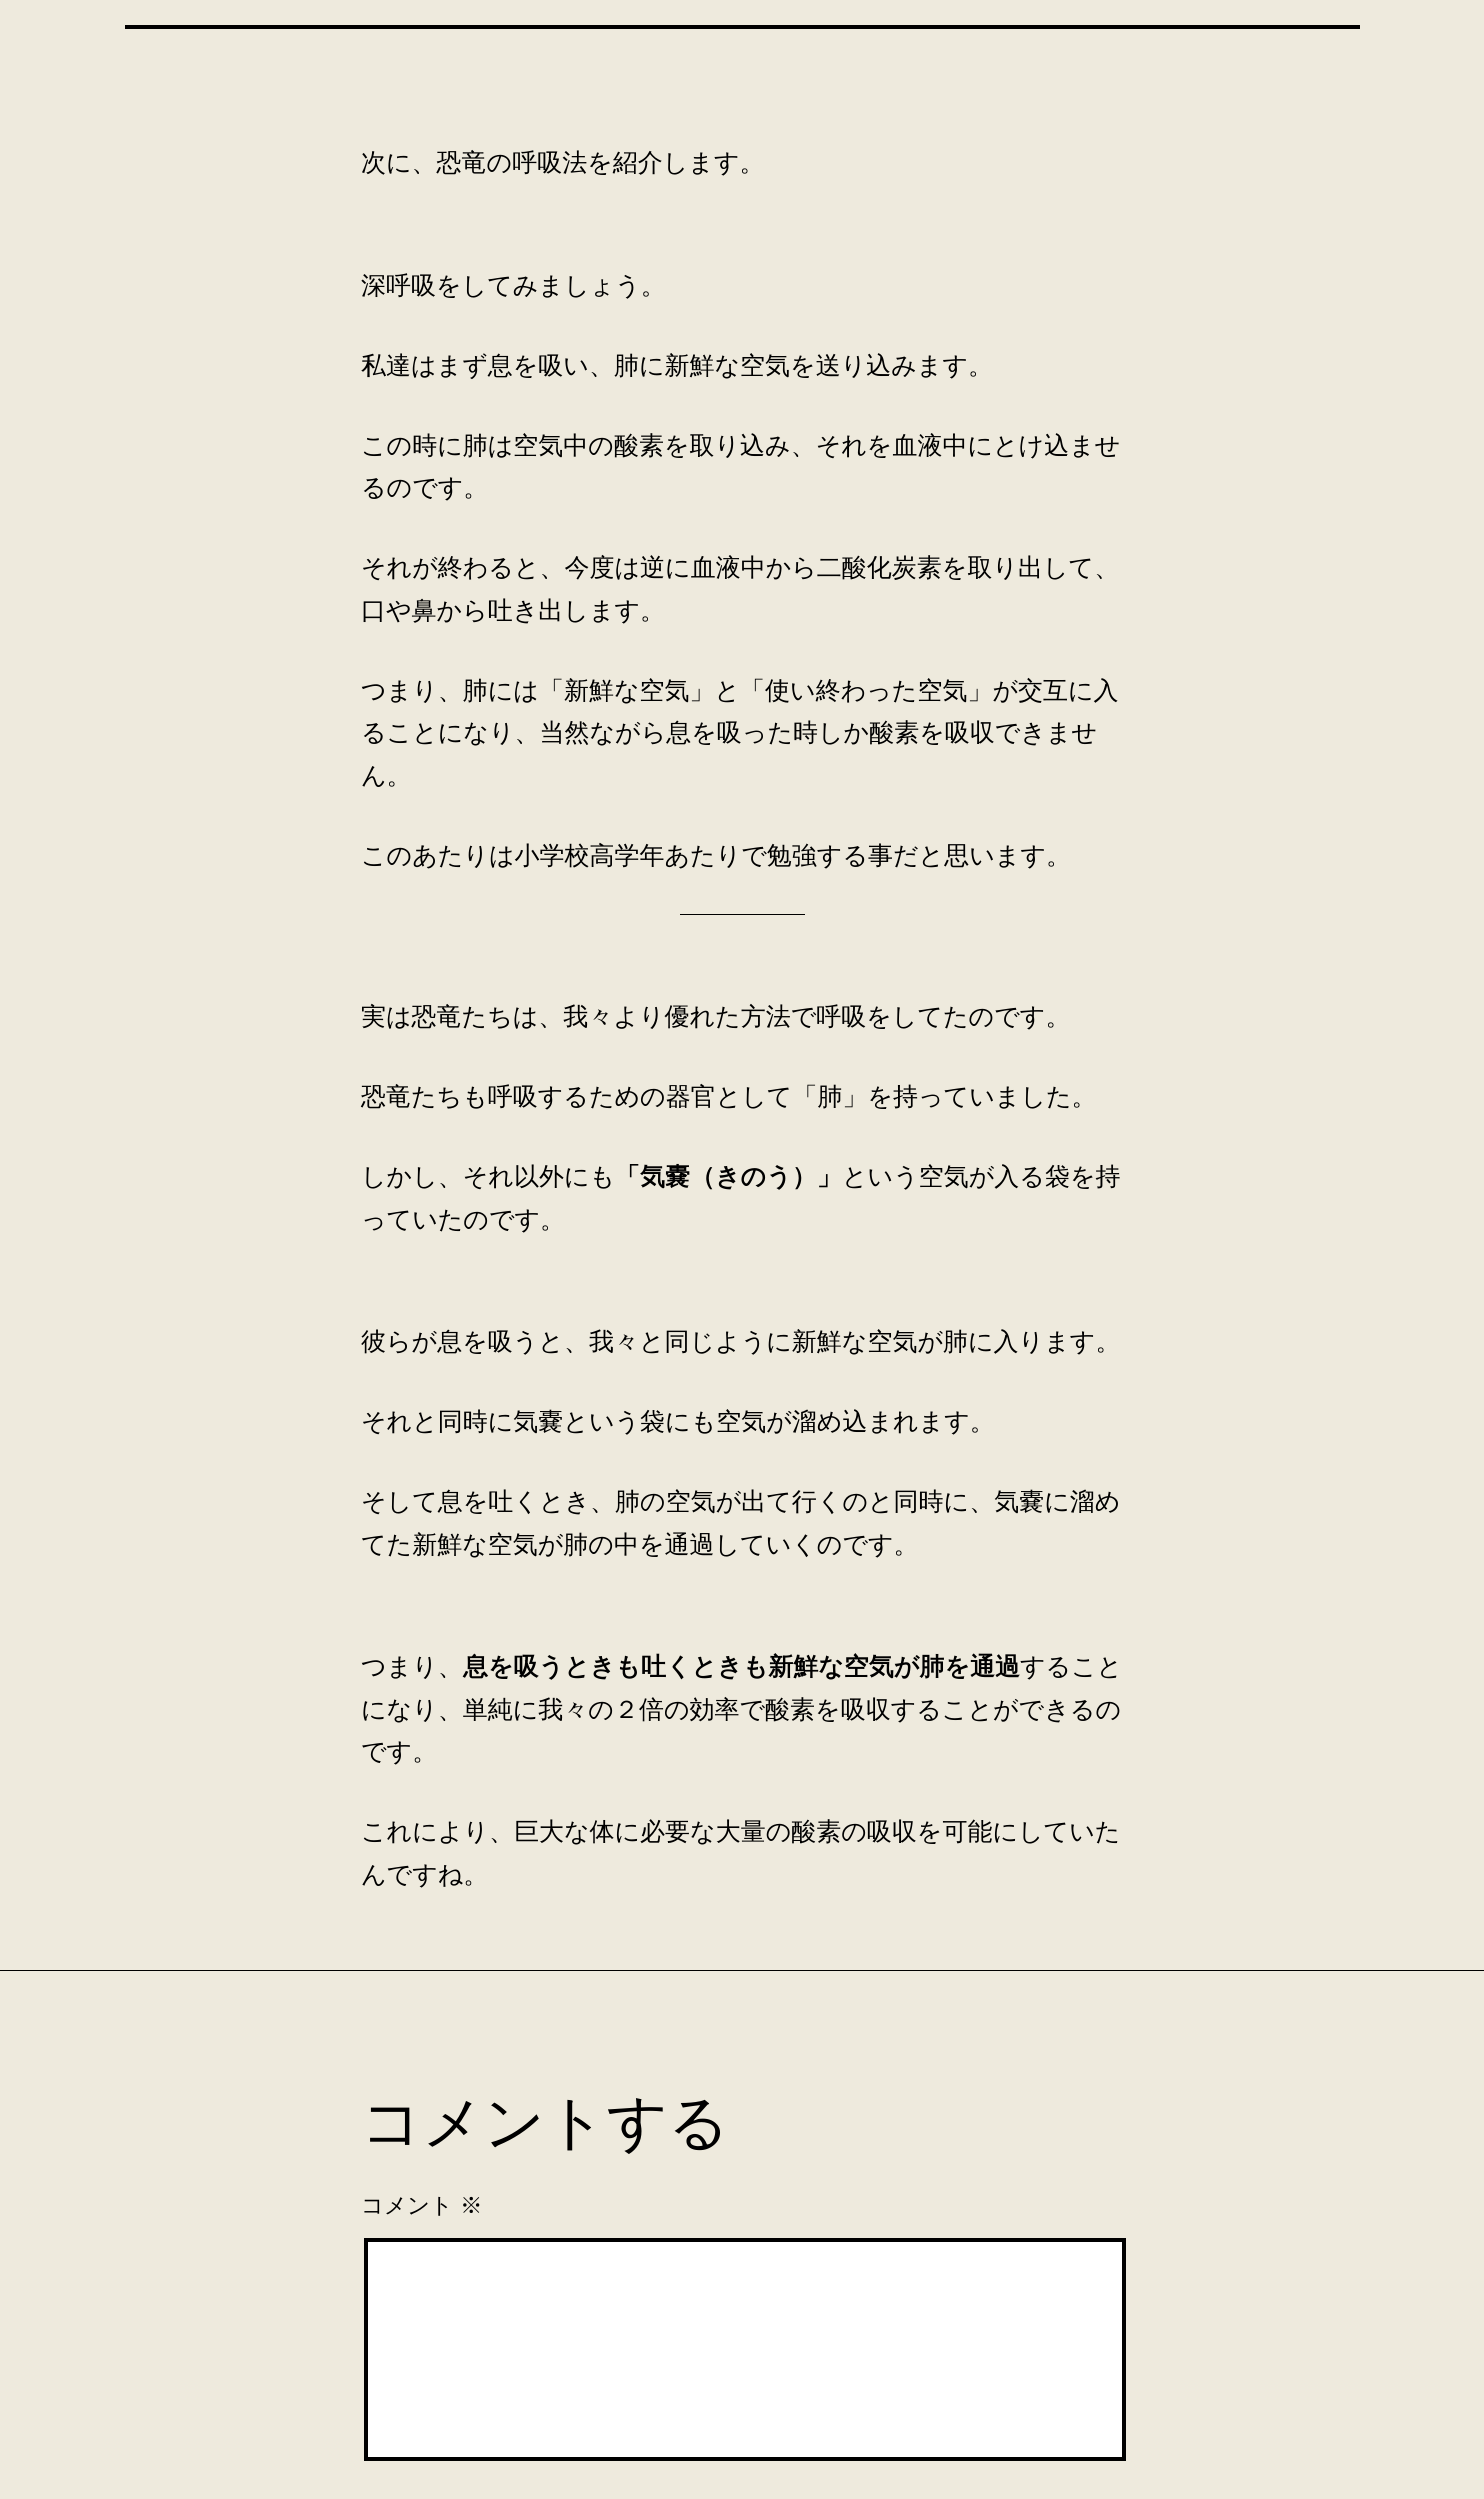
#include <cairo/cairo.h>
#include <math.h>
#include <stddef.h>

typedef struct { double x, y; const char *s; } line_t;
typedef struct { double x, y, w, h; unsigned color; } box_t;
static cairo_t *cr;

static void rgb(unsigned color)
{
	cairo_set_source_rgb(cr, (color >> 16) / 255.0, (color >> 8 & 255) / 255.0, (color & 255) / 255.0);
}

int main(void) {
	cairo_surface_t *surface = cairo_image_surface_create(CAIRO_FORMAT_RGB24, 1484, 2499);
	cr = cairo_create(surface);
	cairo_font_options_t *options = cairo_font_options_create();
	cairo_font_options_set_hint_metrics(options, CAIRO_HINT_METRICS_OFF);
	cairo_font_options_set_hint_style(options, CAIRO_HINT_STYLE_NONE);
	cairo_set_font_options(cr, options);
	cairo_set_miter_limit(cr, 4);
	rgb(0xeeeadd);
	cairo_paint(cr);
	{
		static const box_t items[] = {
			{125, 25, 1235, 4, 0x000000},
			{680, 914, 125, 1, 0x000000},
			{0, 1970, 1484, 1, 0x000000},
		};
		for (size_t i = 0; i < sizeof items / sizeof *items; i++) {
			rgb(items[i].color);
			cairo_rectangle(cr, items[i].x, items[i].y, items[i].w, items[i].h);
			cairo_fill(cr);
		}
	}
	rgb(0xffffff);
	cairo_rectangle(cr, 366, 2240, 758, 219);
	cairo_fill_preserve(cr);
	rgb(0x000000);
	cairo_set_line_width(cr, 4);
	cairo_stroke(cr);
	cairo_select_font_face(cr, "WenQuanYi Zen Hei Medium", CAIRO_FONT_SLANT_NORMAL, CAIRO_FONT_WEIGHT_NORMAL);
	cairo_set_font_size(cr, 25);
	{
		static const line_t items[] = {
			{361, 171, "次に、恐竜の呼吸法を紹介します。"},
			{361, 294, "深呼吸をしてみましょう。"},
			{361, 374, "私達はまず息を吸い、肺に新鮮な空気を送り込みます。"},
			{361, 454, "この時に肺は空気中の酸素を取り込み、それを血液中にとけ込ませ"},
			{361, 496, "るのです。"},
			{361, 576, "それが終わると、今度は逆に血液中から二酸化炭素を取り出して、"},
			{361, 619, "口や鼻から吐き出します。"},
			{361, 699, "つまり、肺には「新鮮な空気」と「使い終わった空気」が交互に入"},
			{361, 741, "ることになり、当然ながら息を吸った時しか酸素を吸収できませ"},
			{361, 784, "ん。"},
			{361, 864, "このあたりは小学校高学年あたりで勉強する事だと思います。"},
			{361, 1025, "実は恐竜たちは、我々より優れた方法で呼吸をしてたのです。"},
			{361, 1105, "恐竜たちも呼吸するための器官として「肺」を持っていました。"},
			{361, 1185, "しかし、それ以外にも"},
		};
		for (size_t i = 0; i < sizeof items / sizeof *items; i++) {
			cairo_move_to(cr, items[i].x, items[i].y);
			cairo_show_text(cr, items[i].s);
		}
	}
	cairo_select_font_face(cr, "WenQuanYi Zen Hei", CAIRO_FONT_SLANT_NORMAL, CAIRO_FONT_WEIGHT_BOLD);
	cairo_move_to(cr, 615, 1185);
	cairo_show_text(cr, "「気嚢（きのう）」");
	cairo_select_font_face(cr, "WenQuanYi Zen Hei Medium", CAIRO_FONT_SLANT_NORMAL, CAIRO_FONT_WEIGHT_NORMAL);
	{
		static const line_t items[] = {
			{842, 1185, "という空気が入る袋を持"},
			{361, 1228, "っていたのです。"},
			{361, 1350, "彼らが息を吸うと、我々と同じように新鮮な空気が肺に入ります。"},
			{361, 1430, "それと同時に気嚢という袋にも空気が溜め込まれます。"},
			{361, 1510, "そして息を吐くとき、肺の空気が出て行くのと同時に、気嚢に溜め"},
			{361, 1553, "てた新鮮な空気が肺の中を通過していくのです。"},
			{361, 1675, "つまり、"},
		};
		for (size_t i = 0; i < sizeof items / sizeof *items; i++) {
			cairo_move_to(cr, items[i].x, items[i].y);
			cairo_show_text(cr, items[i].s);
		}
	}
	cairo_select_font_face(cr, "WenQuanYi Zen Hei", CAIRO_FONT_SLANT_NORMAL, CAIRO_FONT_WEIGHT_BOLD);
	cairo_move_to(cr, 463, 1675);
	cairo_show_text(cr, "息を吸うときも吐くときも新鮮な空気が肺を通過");
	cairo_select_font_face(cr, "WenQuanYi Zen Hei Medium", CAIRO_FONT_SLANT_NORMAL, CAIRO_FONT_WEIGHT_NORMAL);
	{
		static const line_t items[] = {
			{1020, 1675, "すること"},
			{361, 1718, "になり、単純に我々の２倍の効率で酸素を吸収することができるの"},
			{361, 1760, "です。"},
			{361, 1840, "これにより、巨大な体に必要な大量の酸素の吸収を可能にしていた"},
			{361, 1883, "んですね。"},
		};
		for (size_t i = 0; i < sizeof items / sizeof *items; i++) {
			cairo_move_to(cr, items[i].x, items[i].y);
			cairo_show_text(cr, items[i].s);
		}
	}
	cairo_set_font_size(cr, 60);
	cairo_move_to(cr, 361, 2143);
	cairo_show_text(cr, "コメントする");
	cairo_set_font_size(cr, 22.5);
	cairo_move_to(cr, 361, 2213);
	cairo_show_text(cr, "コメント");
	cairo_move_to(cr, 460, 2213);
	cairo_show_text(cr, "※");
	cairo_surface_write_to_png(surface, "page.png");
	cairo_font_options_destroy(options);
	cairo_destroy(cr);
	cairo_surface_destroy(surface);
	return 0;
}
